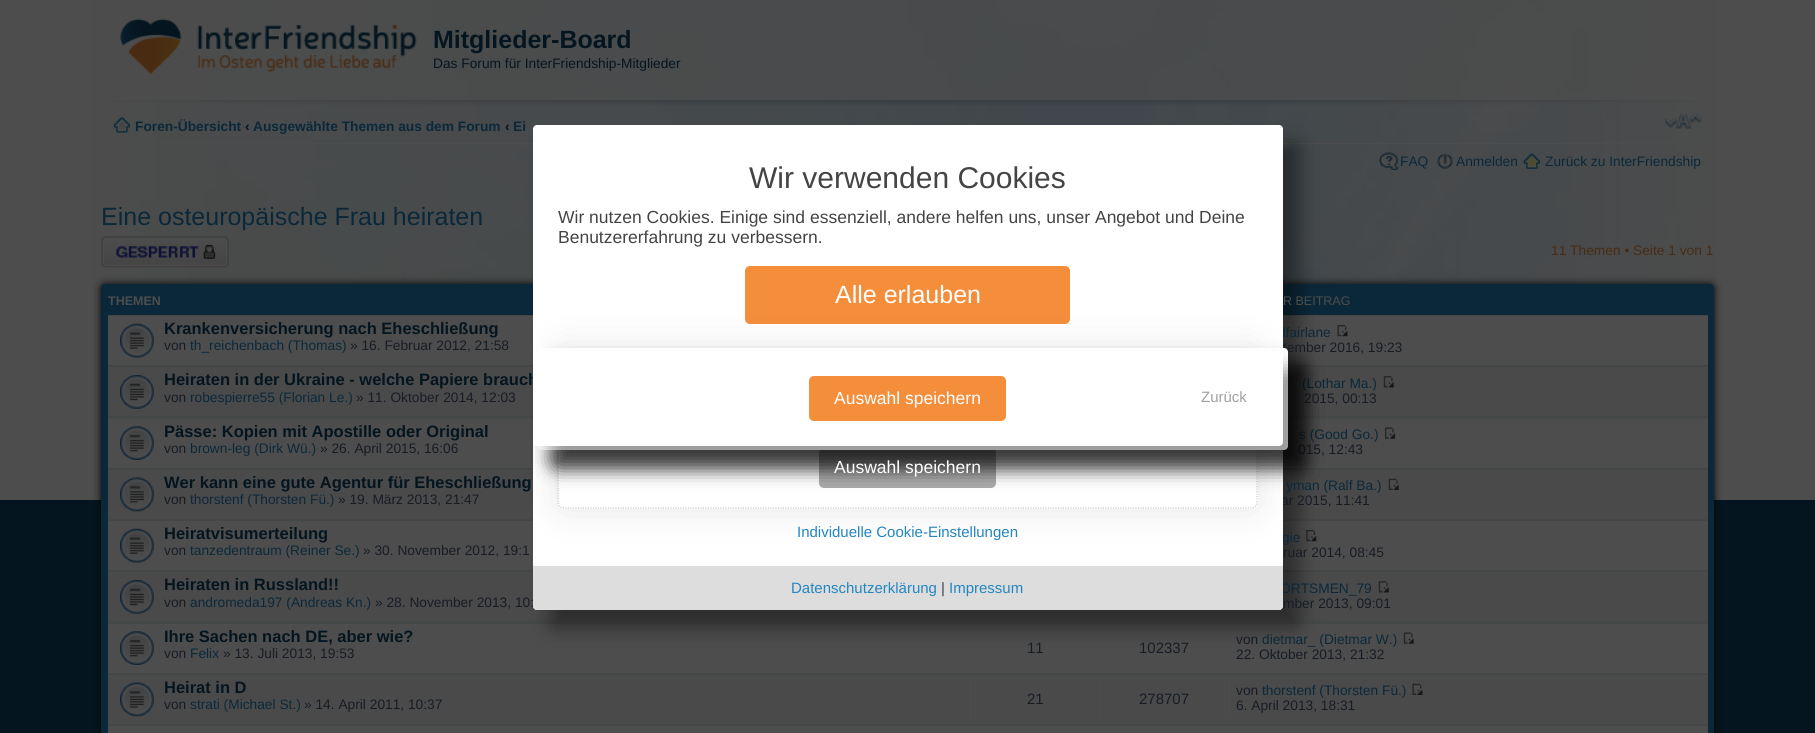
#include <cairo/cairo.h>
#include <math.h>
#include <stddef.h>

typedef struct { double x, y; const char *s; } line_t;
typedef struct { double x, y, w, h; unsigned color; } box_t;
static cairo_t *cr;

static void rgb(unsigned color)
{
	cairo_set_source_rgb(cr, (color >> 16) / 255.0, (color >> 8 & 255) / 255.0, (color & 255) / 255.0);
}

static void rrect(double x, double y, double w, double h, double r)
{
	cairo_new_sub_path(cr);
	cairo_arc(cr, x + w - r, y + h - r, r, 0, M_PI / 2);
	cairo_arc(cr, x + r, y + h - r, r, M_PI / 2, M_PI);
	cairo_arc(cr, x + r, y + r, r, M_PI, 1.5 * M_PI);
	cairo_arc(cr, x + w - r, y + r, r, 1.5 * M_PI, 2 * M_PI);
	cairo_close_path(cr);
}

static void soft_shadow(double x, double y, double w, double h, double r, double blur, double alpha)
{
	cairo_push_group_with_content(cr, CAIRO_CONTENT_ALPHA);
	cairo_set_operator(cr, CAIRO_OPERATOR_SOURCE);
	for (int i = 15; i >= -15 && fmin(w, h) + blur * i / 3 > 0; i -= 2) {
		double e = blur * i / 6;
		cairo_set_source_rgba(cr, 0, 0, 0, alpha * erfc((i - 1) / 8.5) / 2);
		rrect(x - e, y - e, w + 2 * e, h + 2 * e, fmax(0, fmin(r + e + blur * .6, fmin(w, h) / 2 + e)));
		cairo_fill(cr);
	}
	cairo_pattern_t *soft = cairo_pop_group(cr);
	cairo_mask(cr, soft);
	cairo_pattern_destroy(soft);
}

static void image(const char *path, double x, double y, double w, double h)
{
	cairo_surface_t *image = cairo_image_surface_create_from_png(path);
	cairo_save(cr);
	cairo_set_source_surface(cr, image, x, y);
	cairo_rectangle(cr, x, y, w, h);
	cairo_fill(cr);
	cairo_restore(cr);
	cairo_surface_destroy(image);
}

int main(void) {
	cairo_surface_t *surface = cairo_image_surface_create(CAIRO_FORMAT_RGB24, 1815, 733);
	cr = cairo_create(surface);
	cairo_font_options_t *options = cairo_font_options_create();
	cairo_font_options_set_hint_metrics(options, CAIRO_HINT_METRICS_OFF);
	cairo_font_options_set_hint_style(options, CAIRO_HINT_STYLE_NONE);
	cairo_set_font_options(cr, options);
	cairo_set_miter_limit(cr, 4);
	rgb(0x04151f);
	cairo_paint(cr);
	rgb(0x4d4d4d);
	cairo_rectangle(cr, 0, 0, 1815, 500);
	cairo_fill(cr);
	image("img/1.png", 91, 0, 1625, 500);
	image("img/2.png", 112, 0, 1589, 106);
	image("img/3.png", 120, 18, 297, 56);
	cairo_rectangle(cr, 156, 143, 1521, 1);
	cairo_fill(cr);
	image("img/4.png", 113, 117, 17, 16);
	image("img/5.png", 1665, 113, 37, 16);
	image("img/6.png", 1378, 152, 21, 18);
	image("img/7.png", 1437, 153, 16, 16);
	image("img/8.png", 1523, 153, 17, 16);
	rgb(0x050505);
	soft_shadow(101, 284, 1613, 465, 4, 4, 1);
	rgb(0x0b283a);
	rrect(101, 284, 1613, 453, 4);
	cairo_fill(cr);
	{
		static const box_t items[] = {
			{108, 316, 1600, 49, 0x4d4d4d},
			{108, 315, 1600, 1, 0x444747},
			{108, 365, 1600, 2, 0x444747},
			{108, 367, 1600, 51, 0x4a4a4b},
			{108, 416, 1600, 1, 0x444747},
			{108, 419, 1600, 49, 0x4d4d4d},
			{108, 418, 1600, 1, 0x444747},
			{108, 468, 1600, 2, 0x444747},
			{108, 470, 1600, 49, 0x4a4a4b},
			{108, 519, 1600, 2, 0x444747},
			{108, 521, 1600, 49, 0x4d4d4d},
			{108, 570, 1600, 2, 0x444747},
		};
		for (size_t i = 0; i < sizeof items / sizeof *items; i++) {
			rgb(items[i].color);
			cairo_rectangle(cr, items[i].x, items[i].y, items[i].w, items[i].h);
			cairo_fill(cr);
		}
	}
	image("img/18.png", 1306, 530, 11, 12);
	{
		static const box_t items[] = {
			{108, 572, 1600, 51, 0x4a4a4b},
			{108, 621, 1600, 1, 0x444747},
			{1229, 610, 1, 5, 0x4d4d4d},
			{970, 610, 1, 9, 0x4d4d4d},
			{1099, 610, 1, 9, 0x4d4d4d},
			{108, 624, 1600, 49, 0x4d4d4d},
			{108, 623, 1600, 1, 0x444747},
		};
		for (size_t i = 0; i < sizeof items / sizeof *items; i++) {
			rgb(items[i].color);
			cairo_rectangle(cr, items[i].x, items[i].y, items[i].w, items[i].h);
			cairo_fill(cr);
		}
	}
	rgb(0x000000);
	soft_shadow(550, 143, 750, 485, 4, 9.5, 0.4);
	image("img/9.png", 101, 236, 128, 32);
	image("img/10.png", 120, 323, 34, 35);
	image("img/11.png", 1337, 325, 11, 12);
	image("img/12.png", 120, 375, 34, 34);
	image("img/13.png", 1383, 376, 11, 12);
	image("img/14.png", 120, 426, 34, 34);
	image("img/15.png", 1384, 427, 12, 12);
	image("img/16.png", 120, 477, 34, 35);
	image("img/17.png", 1388, 478, 11, 12);
	image("img/10.png", 120, 528, 34, 35);
	image("img/19.png", 120, 580, 34, 34);
	image("img/13.png", 1378, 581, 11, 12);
	rgb(0x444747);
	cairo_rectangle(cr, 108, 673, 1600, 2);
	cairo_fill(cr);
	image("img/14.png", 120, 631, 34, 34);
	image("img/20.png", 1403, 632, 11, 12);
	rgb(0x4a4a4b);
	cairo_rectangle(cr, 108, 675, 1600, 49);
	cairo_fill(cr);
	rgb(0x444747);
	cairo_rectangle(cr, 108, 724, 1600, 2);
	cairo_fill(cr);
	image("img/16.png", 120, 682, 34, 35);
	{
		static const box_t items[] = {
			{970, 678, 1, 43, 0x4d4d4d},
			{1099, 678, 1, 43, 0x4d4d4d},
			{1229, 678, 1, 40, 0x4d4d4d},
		};
		for (size_t i = 0; i < sizeof items / sizeof *items; i++) {
			rgb(items[i].color);
			cairo_rectangle(cr, items[i].x, items[i].y, items[i].w, items[i].h);
			cairo_fill(cr);
		}
	}
	image("img/21.png", 1412, 683, 11, 12);
	cairo_rectangle(cr, 108, 726, 1600, 7);
	cairo_fill(cr);
	cairo_select_font_face(cr, "Liberation Sans", CAIRO_FONT_SLANT_NORMAL, CAIRO_FONT_WEIGHT_BOLD);
	cairo_set_font_size(cr, 25);
	rgb(0x04151f);
	cairo_move_to(cr, 433, 48);
	cairo_show_text(cr, "Mitglieder-Board");
	cairo_select_font_face(cr, "Liberation Sans", CAIRO_FONT_SLANT_NORMAL, CAIRO_FONT_WEIGHT_NORMAL);
	cairo_set_font_size(cr, 13.75);
	cairo_move_to(cr, 433, 68);
	cairo_show_text(cr, "Das Forum für InterFriendship-Mitglieder");
	cairo_select_font_face(cr, "Liberation Sans", CAIRO_FONT_SLANT_NORMAL, CAIRO_FONT_WEIGHT_BOLD);
	rgb(0x0b283a);
	cairo_move_to(cr, 135, 131);
	cairo_show_text(cr, "Foren-Übersicht");
	rgb(0x04151f);
	cairo_move_to(cr, 245, 131);
	cairo_show_text(cr, "‹");
	rgb(0x0b283a);
	cairo_move_to(cr, 253, 131);
	cairo_show_text(cr, "Ausgewählte Themen aus dem Forum");
	rgb(0x04151f);
	cairo_move_to(cr, 505, 131);
	cairo_show_text(cr, "‹");
	rgb(0x0b283a);
	cairo_move_to(cr, 513, 131);
	cairo_show_text(cr, "Ei");
	cairo_select_font_face(cr, "Liberation Sans", CAIRO_FONT_SLANT_NORMAL, CAIRO_FONT_WEIGHT_NORMAL);
	{
		static const line_t items[] = {
			{1400, 166, "FAQ"},
			{1456, 166, "Anmelden"},
			{1545, 166, "Zurück zu InterFriendship"},
		};
		for (size_t i = 0; i < sizeof items / sizeof *items; i++) {
			cairo_move_to(cr, items[i].x, items[i].y);
			cairo_show_text(cr, items[i].s);
		}
	}
	cairo_set_font_size(cr, 25);
	cairo_move_to(cr, 101, 225);
	cairo_show_text(cr, "Eine osteuropäische Frau heiraten");
	cairo_set_font_size(cr, 13.75);
	rgb(0x492b12);
	cairo_move_to(cr, 1551, 255);
	cairo_show_text(cr, "11 Themen • Seite 1 von 1");
	cairo_select_font_face(cr, "Liberation Sans", CAIRO_FONT_SLANT_NORMAL, CAIRO_FONT_WEIGHT_BOLD);
	cairo_set_font_size(cr, 12.5);
	rgb(0x4d4d4d);
	cairo_move_to(cr, 108, 305);
	cairo_show_text(cr, "THEMEN");
	cairo_select_font_face(cr, "Liberation Sans", CAIRO_FONT_SLANT_NORMAL, CAIRO_FONT_WEIGHT_NORMAL);
	cairo_move_to(cr, 1283, 305);
	cairo_show_text(cr, "R BEITRAG");
	cairo_select_font_face(cr, "Liberation Sans", CAIRO_FONT_SLANT_NORMAL, CAIRO_FONT_WEIGHT_BOLD);
	cairo_set_font_size(cr, 16.5);
	rgb(0x04151f);
	cairo_move_to(cr, 164, 334);
	cairo_show_text(cr, "Krankenversicherung nach Eheschließung");
	cairo_select_font_face(cr, "Liberation Sans", CAIRO_FONT_SLANT_NORMAL, CAIRO_FONT_WEIGHT_NORMAL);
	cairo_set_font_size(cr, 13.75);
	rgb(0x171c24);
	cairo_move_to(cr, 164, 350);
	cairo_show_text(cr, "von");
	rgb(0x0b283a);
	cairo_move_to(cr, 190, 350);
	cairo_show_text(cr, "th_reichenbach (Thomas)");
	rgb(0x171c24);
	cairo_move_to(cr, 350, 350);
	cairo_show_text(cr, "» 16. Februar 2012, 21:58");
	rgb(0x0b283a);
	cairo_move_to(cr, 1278, 337);
	cairo_show_text(cr, "dfairlane");
	rgb(0x171c24);
	cairo_move_to(cr, 1283, 352);
	cairo_show_text(cr, "tember 2016, 19:23");
	cairo_select_font_face(cr, "Liberation Sans", CAIRO_FONT_SLANT_NORMAL, CAIRO_FONT_WEIGHT_BOLD);
	cairo_set_font_size(cr, 16.5);
	rgb(0x04151f);
	cairo_move_to(cr, 164, 385);
	cairo_show_text(cr, "Heiraten in der Ukraine - welche Papiere brauch");
	cairo_select_font_face(cr, "Liberation Sans", CAIRO_FONT_SLANT_NORMAL, CAIRO_FONT_WEIGHT_NORMAL);
	cairo_set_font_size(cr, 13.75);
	rgb(0x171c24);
	cairo_move_to(cr, 164, 402);
	cairo_show_text(cr, "von");
	rgb(0x0b283a);
	cairo_move_to(cr, 190, 402);
	cairo_show_text(cr, "robespierre55 (Florian Le.)");
	rgb(0x171c24);
	cairo_move_to(cr, 356, 402);
	cairo_show_text(cr, "» 11. Oktober 2014, 12:03");
	rgb(0x0b283a);
	cairo_move_to(cr, 1302, 388);
	cairo_show_text(cr, "(Lothar Ma.)");
	rgb(0x171c24);
	cairo_move_to(cr, 1304, 403);
	cairo_show_text(cr, "2015, 00:13");
	cairo_select_font_face(cr, "Liberation Sans", CAIRO_FONT_SLANT_NORMAL, CAIRO_FONT_WEIGHT_BOLD);
	cairo_set_font_size(cr, 16.5);
	rgb(0x04151f);
	cairo_move_to(cr, 164, 437);
	cairo_show_text(cr, "Pässe: Kopien mit Apostille oder Original");
	cairo_select_font_face(cr, "Liberation Sans", CAIRO_FONT_SLANT_NORMAL, CAIRO_FONT_WEIGHT_NORMAL);
	cairo_set_font_size(cr, 13.75);
	rgb(0x171c24);
	cairo_move_to(cr, 164, 453);
	cairo_show_text(cr, "von");
	rgb(0x0b283a);
	cairo_move_to(cr, 190, 453);
	cairo_show_text(cr, "brown-leg (Dirk Wü.)");
	rgb(0x171c24);
	cairo_move_to(cr, 320, 453);
	cairo_show_text(cr, "» 26. April 2015, 16:06");
	rgb(0x0b283a);
	cairo_move_to(cr, 1299, 439);
	cairo_show_text(cr, "s (Good Go.)");
	rgb(0x171c24);
	cairo_move_to(cr, 1298, 454);
	cairo_show_text(cr, "015, 12:43");
	cairo_select_font_face(cr, "Liberation Sans", CAIRO_FONT_SLANT_NORMAL, CAIRO_FONT_WEIGHT_BOLD);
	cairo_set_font_size(cr, 16.5);
	rgb(0x04151f);
	cairo_move_to(cr, 164, 488);
	cairo_show_text(cr, "Wer kann eine gute Agentur für Eheschließung");
	cairo_select_font_face(cr, "Liberation Sans", CAIRO_FONT_SLANT_NORMAL, CAIRO_FONT_WEIGHT_NORMAL);
	cairo_set_font_size(cr, 13.75);
	rgb(0x171c24);
	cairo_move_to(cr, 164, 504);
	cairo_show_text(cr, "von");
	rgb(0x0b283a);
	cairo_move_to(cr, 190, 504);
	cairo_show_text(cr, "thorstenf (Thorsten Fü.)");
	rgb(0x171c24);
	cairo_move_to(cr, 338, 504);
	cairo_show_text(cr, "» 19. März 2013, 21:47");
	rgb(0x0b283a);
	cairo_move_to(cr, 1286, 490);
	cairo_show_text(cr, "yman (Ralf Ba.)");
	rgb(0x171c24);
	cairo_move_to(cr, 1281, 505);
	cairo_show_text(cr, "ar 2015, 11:41");
	cairo_select_font_face(cr, "Liberation Sans", CAIRO_FONT_SLANT_NORMAL, CAIRO_FONT_WEIGHT_BOLD);
	cairo_set_font_size(cr, 16.5);
	rgb(0x04151f);
	cairo_move_to(cr, 164, 539);
	cairo_show_text(cr, "Heiratvisumerteilung");
	cairo_select_font_face(cr, "Liberation Sans", CAIRO_FONT_SLANT_NORMAL, CAIRO_FONT_WEIGHT_NORMAL);
	cairo_set_font_size(cr, 13.75);
	rgb(0x171c24);
	cairo_move_to(cr, 164, 555);
	cairo_show_text(cr, "von");
	rgb(0x0b283a);
	cairo_move_to(cr, 190, 555);
	cairo_show_text(cr, "tanzedentraum (Reiner Se.)");
	rgb(0x171c24);
	cairo_move_to(cr, 363, 555);
	cairo_show_text(cr, "» 30. November 2012, 19:1");
	rgb(0x0b283a);
	cairo_move_to(cr, 1282, 542);
	cairo_show_text(cr, "gie");
	rgb(0x171c24);
	cairo_move_to(cr, 1283, 557);
	cairo_show_text(cr, "ruar 2014, 08:45");
	cairo_select_font_face(cr, "Liberation Sans", CAIRO_FONT_SLANT_NORMAL, CAIRO_FONT_WEIGHT_BOLD);
	cairo_set_font_size(cr, 16.5);
	rgb(0x04151f);
	cairo_move_to(cr, 164, 590);
	cairo_show_text(cr, "Heiraten in Russland!!");
	cairo_select_font_face(cr, "Liberation Sans", CAIRO_FONT_SLANT_NORMAL, CAIRO_FONT_WEIGHT_NORMAL);
	cairo_set_font_size(cr, 13.75);
	rgb(0x171c24);
	cairo_move_to(cr, 164, 607);
	cairo_show_text(cr, "von");
	rgb(0x0b283a);
	cairo_move_to(cr, 190, 607);
	cairo_show_text(cr, "andromeda197 (Andreas Kn.)");
	rgb(0x171c24);
	cairo_move_to(cr, 375, 607);
	cairo_show_text(cr, "» 28. November 2013, 10:");
	rgb(0x0b283a);
	cairo_move_to(cr, 1280, 593);
	cairo_show_text(cr, "ORTSMEN_79");
	rgb(0xffffff);
	rrect(533, 125, 750, 485, 4);
	cairo_fill(cr);
	rgb(0xf48e3b);
	rrect(745, 266, 325, 58, 5);
	cairo_fill(cr);
	cairo_save(cr);
	cairo_set_fill_rule(cr, CAIRO_FILL_RULE_EVEN_ODD);
	cairo_new_path(cr);
	cairo_move_to(cr, 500, 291);
	cairo_line_to(cr, 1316, 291);
	cairo_line_to(cr, 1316, 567);
	cairo_line_to(cr, 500, 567);
	cairo_close_path(cr);
	cairo_move_to(cr, 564, 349);
	cairo_line_to(cr, 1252, 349);
	cairo_curve_to(cr, 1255.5, 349, 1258, 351.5, 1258, 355);
	cairo_line_to(cr, 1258, 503);
	cairo_curve_to(cr, 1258, 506.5, 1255.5, 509, 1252, 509);
	cairo_line_to(cr, 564, 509);
	cairo_curve_to(cr, 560.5, 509, 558, 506.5, 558, 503);
	cairo_line_to(cr, 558, 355);
	cairo_curve_to(cr, 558, 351.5, 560.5, 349, 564, 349);
	cairo_close_path(cr);
	cairo_clip(cr);
	rgb(0x000000);
	soft_shadow(558, 349, 700, 160, 6, 19, 0.1);
	cairo_restore(cr);
	cairo_new_path(cr);
	cairo_move_to(cr, 564, 349);
	cairo_line_to(cr, 1251, 349);
	cairo_curve_to(cr, 1254.5, 349, 1257, 351.5, 1257, 355);
	cairo_line_to(cr, 1257, 502.5);
	cairo_curve_to(cr, 1257, 505.5, 1254.5, 508, 1251, 508);
	cairo_line_to(cr, 564, 508);
	cairo_curve_to(cr, 560.5, 508, 558, 505.5, 558, 502.5);
	cairo_line_to(cr, 558, 355);
	cairo_curve_to(cr, 558, 351.5, 560.5, 349, 564, 349);
	cairo_close_path(cr);
	rgb(0xcccccc);
	cairo_set_line_width(cr, 1.2);
	cairo_set_dash(cr, (double[]){1.25, 1.25}, 2, 0);
	cairo_stroke(cr);
	rgb(0xaaaaaa);
	rrect(819, 448, 177, 40, 5);
	cairo_fill(cr);
	rgb(0x000000);
	soft_shadow(555, 365, 750, 103, 4, 9.5, 0.4);
	soft_shadow(555, 365, 750, 103, 4, 9.5, 0.4);
	rgb(0xffffff);
	rrect(538, 348, 750, 102, 4);
	cairo_fill(cr);
	rgb(0x000000);
	soft_shadow(550, 369, 750, 95, 4, 9.5, 0.4);
	rgb(0xffffff);
	rrect(533, 351, 750, 95, 4);
	cairo_fill(cr);
	cairo_set_font_size(cr, 15);
	rgb(0xa0a0a0);
	cairo_move_to(cr, 1201, 402);
	cairo_show_text(cr, "Zurück");
	rgb(0xf48e3b);
	rrect(809, 376, 197, 45, 5);
	cairo_fill(cr);
	cairo_set_font_size(cr, 17.5);
	rgb(0xffffff);
	cairo_move_to(cr, 834, 404);
	cairo_show_text(cr, "Auswahl speichern");
	rgb(0xdddddd);
	cairo_new_path(cr);
	cairo_move_to(cr, 533, 566);
	cairo_line_to(cr, 1283, 566);
	cairo_line_to(cr, 1283, 606);
	cairo_curve_to(cr, 1283, 608, 1281, 610, 1279, 610);
	cairo_line_to(cr, 537, 610);
	cairo_curve_to(cr, 535, 610, 533, 608, 533, 606);
	cairo_close_path(cr);
	cairo_fill(cr);
	cairo_set_font_size(cr, 15);
	rgb(0x2386c1);
	cairo_move_to(cr, 949, 593);
	cairo_show_text(cr, "Impressum");
	rgb(0x444444);
	cairo_move_to(cr, 941, 593);
	cairo_show_text(cr, "|");
	rgb(0x2386c1);
	cairo_move_to(cr, 791, 593);
	cairo_show_text(cr, "Datenschutzerklärung");
	cairo_move_to(cr, 797, 537);
	cairo_show_text(cr, "Individuelle Cookie-Einstellungen");
	cairo_set_font_size(cr, 17.5);
	rgb(0xffffff);
	cairo_move_to(cr, 834, 473);
	cairo_show_text(cr, "Auswahl speichern");
	cairo_set_font_size(cr, 25);
	cairo_move_to(cr, 835, 303);
	cairo_show_text(cr, "Alle erlauben");
	cairo_set_font_size(cr, 17.5);
	rgb(0x444444);
	cairo_move_to(cr, 558, 243);
	cairo_show_text(cr, "Benutzererfahrung zu verbessern.");
	cairo_move_to(cr, 558, 223);
	cairo_show_text(cr, "Wir nutzen Cookies. Einige sind essenziell, andere helfen uns, unser Angebot und Deine");
	cairo_set_font_size(cr, 30);
	cairo_move_to(cr, 749, 188);
	cairo_show_text(cr, "Wir verwenden Cookies");
	cairo_set_font_size(cr, 13.75);
	rgb(0x171c24);
	cairo_move_to(cr, 1283, 608);
	cairo_show_text(cr, "mber 2013, 09:01");
	cairo_select_font_face(cr, "Liberation Sans", CAIRO_FONT_SLANT_NORMAL, CAIRO_FONT_WEIGHT_BOLD);
	cairo_set_font_size(cr, 16.5);
	rgb(0x04151f);
	cairo_move_to(cr, 164, 642);
	cairo_show_text(cr, "Ihre Sachen nach DE, aber wie?");
	cairo_select_font_face(cr, "Liberation Sans", CAIRO_FONT_SLANT_NORMAL, CAIRO_FONT_WEIGHT_NORMAL);
	cairo_set_font_size(cr, 13.75);
	rgb(0x171c24);
	cairo_move_to(cr, 164, 658);
	cairo_show_text(cr, "von");
	rgb(0x0b283a);
	cairo_move_to(cr, 190, 658);
	cairo_show_text(cr, "Felix");
	rgb(0x171c24);
	cairo_move_to(cr, 223, 658);
	cairo_show_text(cr, "» 13. Juli 2013, 19:53");
	cairo_set_font_size(cr, 15);
	cairo_move_to(cr, 1027, 653);
	cairo_show_text(cr, "11");
	cairo_move_to(cr, 1139, 653);
	cairo_show_text(cr, "102337");
	cairo_set_font_size(cr, 13.75);
	cairo_move_to(cr, 1236, 644);
	cairo_show_text(cr, "von");
	rgb(0x0b283a);
	cairo_move_to(cr, 1262, 644);
	cairo_show_text(cr, "dietmar_ (Dietmar W.)");
	rgb(0x171c24);
	cairo_move_to(cr, 1236, 659);
	cairo_show_text(cr, "22. Oktober 2013, 21:32");
	cairo_select_font_face(cr, "Liberation Sans", CAIRO_FONT_SLANT_NORMAL, CAIRO_FONT_WEIGHT_BOLD);
	cairo_set_font_size(cr, 16.5);
	rgb(0x04151f);
	cairo_move_to(cr, 164, 693);
	cairo_show_text(cr, "Heirat in D");
	cairo_select_font_face(cr, "Liberation Sans", CAIRO_FONT_SLANT_NORMAL, CAIRO_FONT_WEIGHT_NORMAL);
	cairo_set_font_size(cr, 13.75);
	rgb(0x171c24);
	cairo_move_to(cr, 164, 709);
	cairo_show_text(cr, "von");
	rgb(0x0b283a);
	cairo_move_to(cr, 190, 709);
	cairo_show_text(cr, "strati (Michael St.)");
	rgb(0x171c24);
	cairo_move_to(cr, 304, 709);
	cairo_show_text(cr, "» 14. April 2011, 10:37");
	cairo_set_font_size(cr, 15);
	cairo_move_to(cr, 1027, 704);
	cairo_show_text(cr, "21");
	cairo_move_to(cr, 1139, 704);
	cairo_show_text(cr, "278707");
	cairo_set_font_size(cr, 13.75);
	cairo_move_to(cr, 1236, 695);
	cairo_show_text(cr, "von");
	rgb(0x0b283a);
	cairo_move_to(cr, 1262, 695);
	cairo_show_text(cr, "thorstenf (Thorsten Fü.)");
	rgb(0x171c24);
	cairo_move_to(cr, 1236, 710);
	cairo_show_text(cr, "6. April 2013, 18:31");
	cairo_surface_write_to_png(surface, "page.png");
	cairo_font_options_destroy(options);
	cairo_destroy(cr);
	cairo_surface_destroy(surface);
	return 0;
}
